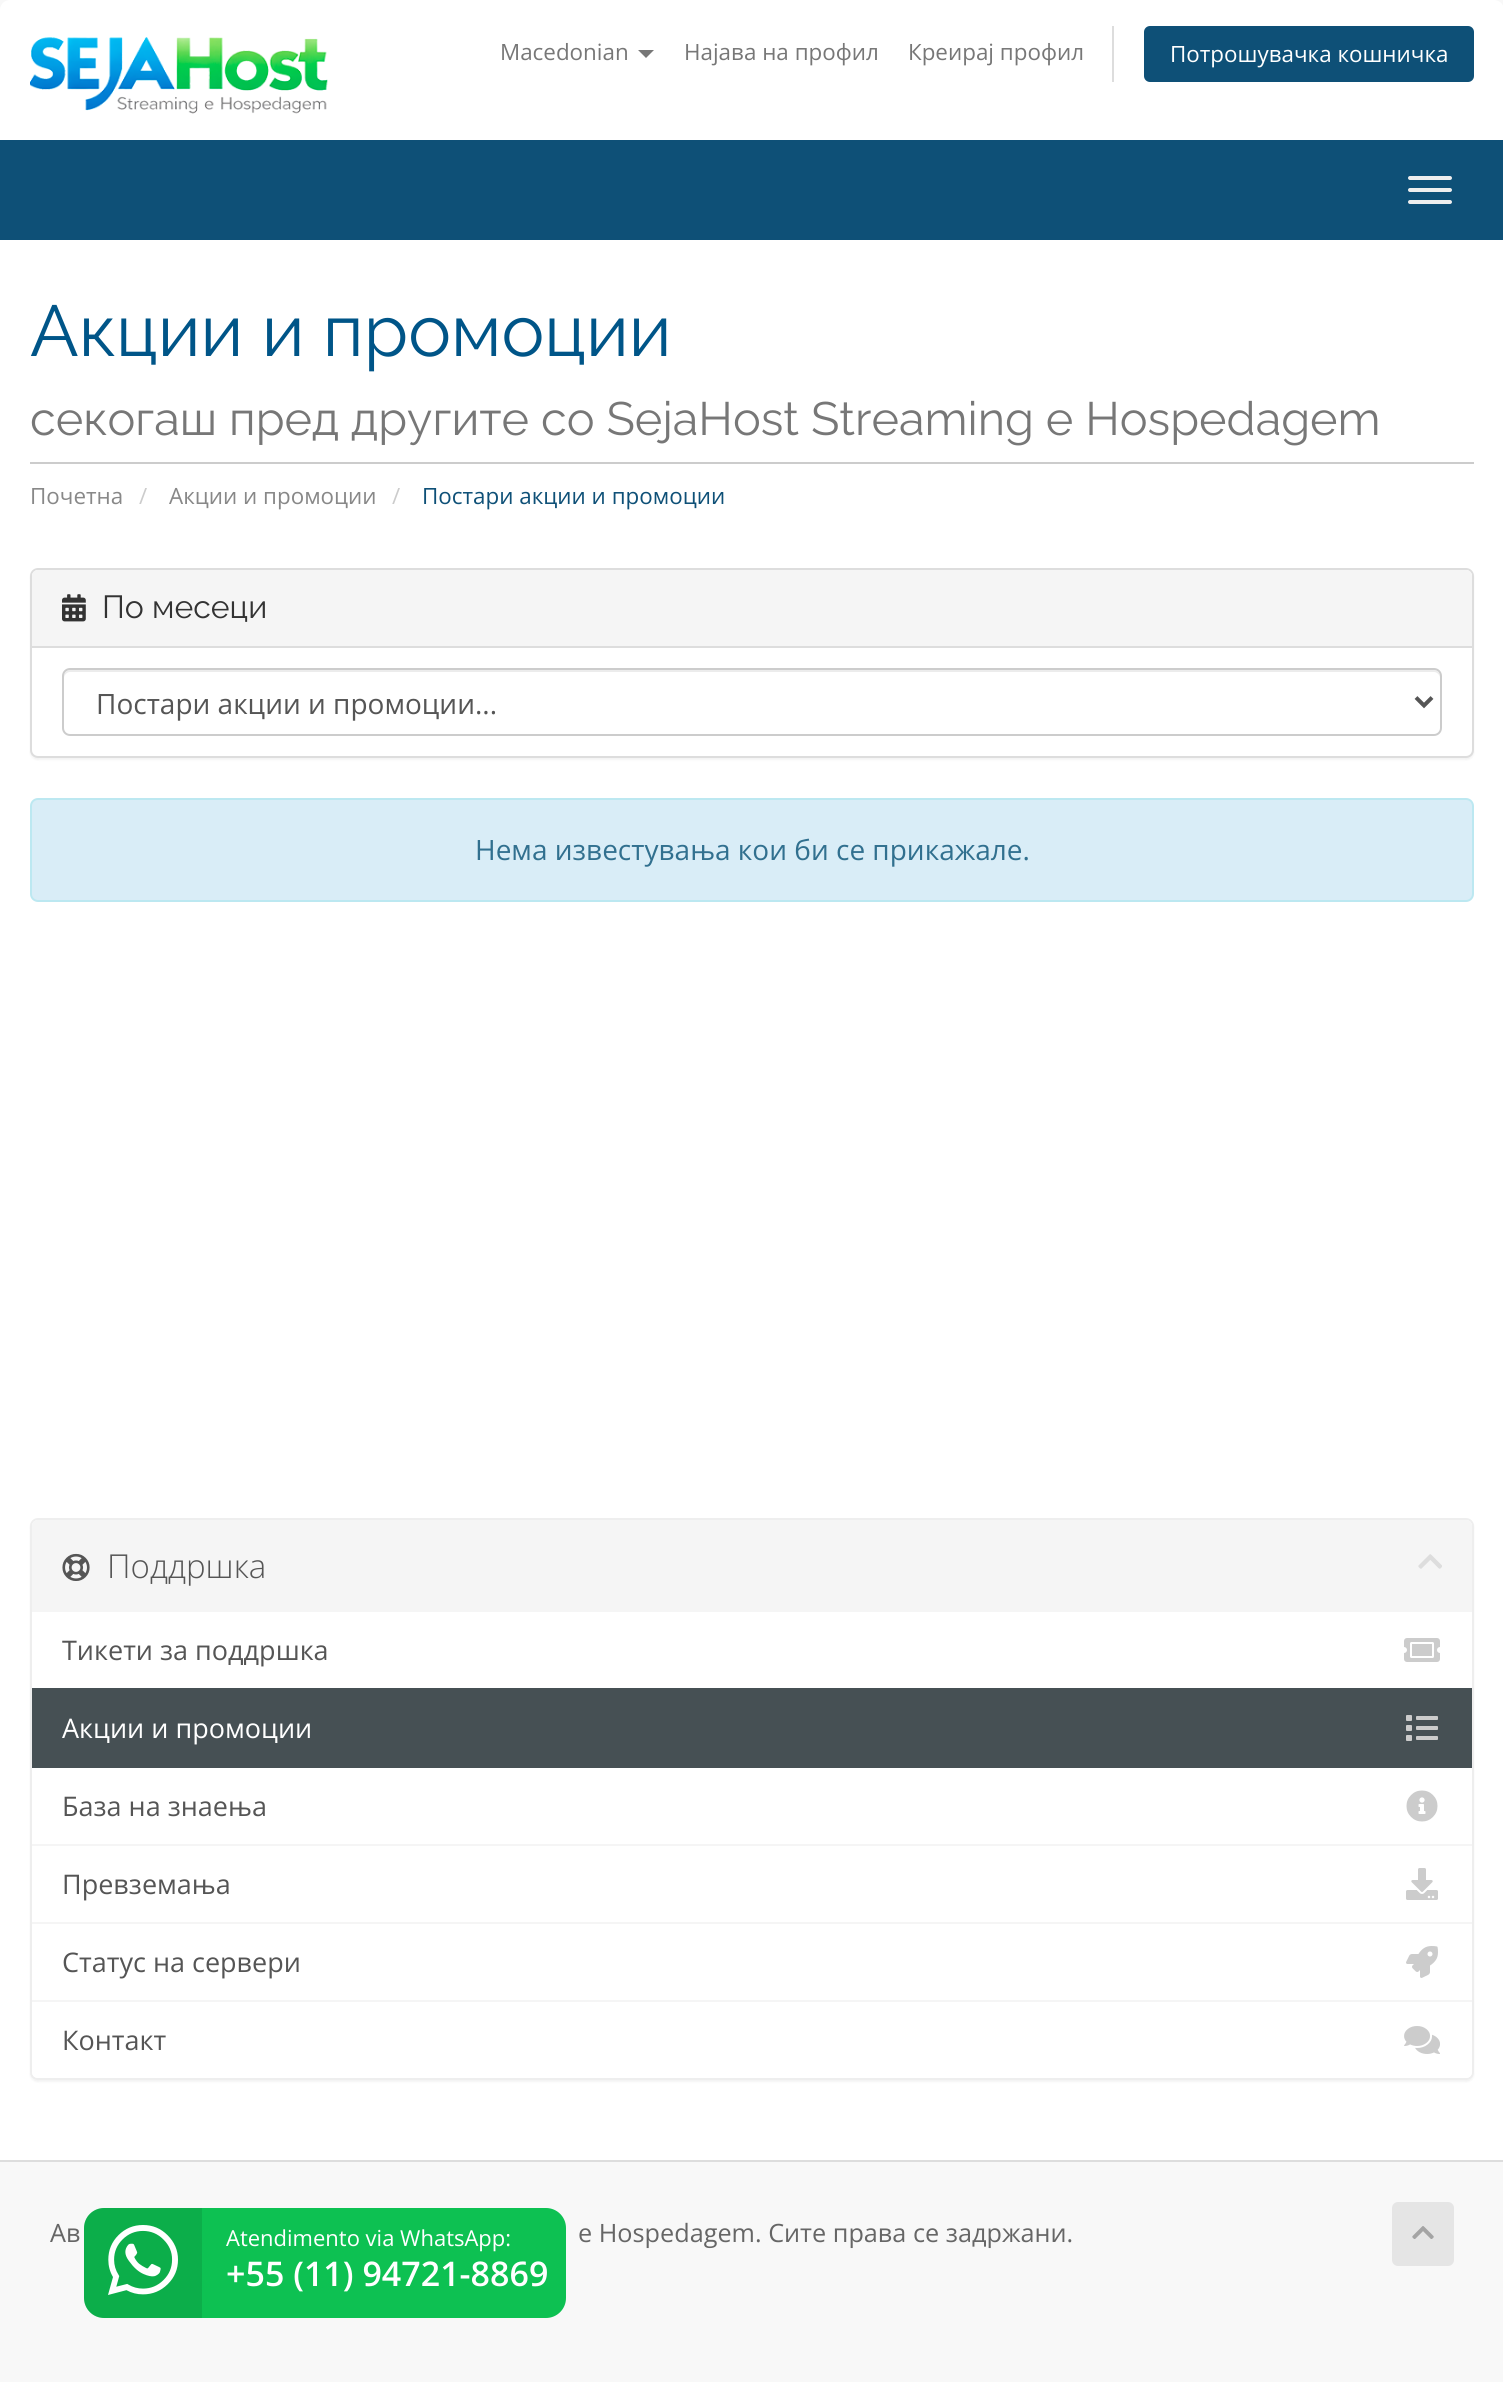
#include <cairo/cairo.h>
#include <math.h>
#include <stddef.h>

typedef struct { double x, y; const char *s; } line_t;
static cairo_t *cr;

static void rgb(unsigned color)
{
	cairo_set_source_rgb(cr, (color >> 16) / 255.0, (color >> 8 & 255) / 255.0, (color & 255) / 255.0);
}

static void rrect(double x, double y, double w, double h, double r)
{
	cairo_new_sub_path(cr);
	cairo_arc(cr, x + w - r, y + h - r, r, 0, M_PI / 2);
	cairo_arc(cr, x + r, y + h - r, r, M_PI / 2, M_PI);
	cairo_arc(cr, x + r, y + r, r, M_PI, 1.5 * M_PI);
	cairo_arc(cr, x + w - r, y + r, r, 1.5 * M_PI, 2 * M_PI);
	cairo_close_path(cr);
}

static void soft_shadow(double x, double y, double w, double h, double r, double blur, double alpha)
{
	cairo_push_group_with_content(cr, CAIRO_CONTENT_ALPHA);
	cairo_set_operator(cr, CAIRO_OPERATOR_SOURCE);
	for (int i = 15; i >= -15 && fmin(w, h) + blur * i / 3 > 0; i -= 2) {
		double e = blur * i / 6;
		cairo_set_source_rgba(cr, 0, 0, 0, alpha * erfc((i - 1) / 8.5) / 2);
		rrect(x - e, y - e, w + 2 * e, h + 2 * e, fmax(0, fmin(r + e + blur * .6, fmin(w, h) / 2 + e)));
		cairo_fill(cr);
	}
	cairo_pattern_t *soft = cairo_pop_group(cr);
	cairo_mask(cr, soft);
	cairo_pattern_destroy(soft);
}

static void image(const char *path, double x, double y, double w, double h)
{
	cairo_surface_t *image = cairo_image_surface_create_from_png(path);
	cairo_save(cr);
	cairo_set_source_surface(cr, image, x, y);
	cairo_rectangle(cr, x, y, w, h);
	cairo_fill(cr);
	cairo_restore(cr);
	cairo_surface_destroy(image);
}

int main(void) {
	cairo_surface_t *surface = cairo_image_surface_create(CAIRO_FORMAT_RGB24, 1503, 2382);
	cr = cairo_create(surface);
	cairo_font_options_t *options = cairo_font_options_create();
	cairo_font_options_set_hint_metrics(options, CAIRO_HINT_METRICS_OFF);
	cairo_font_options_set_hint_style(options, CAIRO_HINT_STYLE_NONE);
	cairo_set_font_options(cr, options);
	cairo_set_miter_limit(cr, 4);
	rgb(0xf8f8f8);
	cairo_paint(cr);
	rgb(0xffffff);
	cairo_new_path(cr);
	cairo_move_to(cr, 10, 0);
	cairo_line_to(cr, 1494, 0);
	cairo_curve_to(cr, 1499.5, 0, 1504, 4.5, 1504, 10);
	cairo_line_to(cr, 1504, 140);
	cairo_line_to(cr, 0, 140);
	cairo_line_to(cr, 0, 10);
	cairo_curve_to(cr, 0, 4.5, 4.5, 0, 10, 0);
	cairo_close_path(cr);
	cairo_fill(cr);
	image("img/1.png", 30, 37, 298, 77);
	rgb(0x777777);
	cairo_new_path(cr);
	cairo_move_to(cr, 638, 50);
	cairo_line_to(cr, 654, 50);
	cairo_line_to(cr, 646, 58);
	cairo_close_path(cr);
	cairo_fill(cr);
	rgb(0xdddddd);
	cairo_rectangle(cr, 1112, 26, 2, 56);
	cairo_fill(cr);
	rgb(0x0e5077);
	rrect(1144, 26, 330, 56, 6);
	cairo_fill(cr);
	cairo_rectangle(cr, 0, 140, 1503, 100);
	cairo_fill(cr);
	rgb(0xeeeeee);
	rrect(1408, 176, 44, 4, 2);
	cairo_fill(cr);
	rrect(1408, 188, 44, 4, 2);
	cairo_fill(cr);
	rrect(1408, 200, 44, 4, 2);
	cairo_fill(cr);
	rgb(0xffffff);
	cairo_rectangle(cr, 0, 240, 1503, 1920);
	cairo_fill(cr);
	rgb(0xcccccc);
	cairo_rectangle(cr, 30, 462, 1444, 2);
	cairo_fill(cr);
	rgb(0x000000);
	soft_shadow(30, 570, 1444, 190, 8, 1, 0.05);
	rgb(0xffffff);
	rrect(31, 569, 1442, 188, 7);
	cairo_fill_preserve(cr);
	rgb(0xdddddd);
	cairo_stroke(cr);
	rgb(0xf5f5f5);
	cairo_new_path(cr);
	cairo_move_to(cr, 38, 570);
	cairo_line_to(cr, 1466, 570);
	cairo_curve_to(cr, 1469.5, 570, 1472, 572.5, 1472, 576);
	cairo_line_to(cr, 1472, 648);
	cairo_line_to(cr, 32, 648);
	cairo_line_to(cr, 32, 576);
	cairo_curve_to(cr, 32, 572.5, 34.5, 570, 38, 570);
	cairo_close_path(cr);
	cairo_fill(cr);
	rgb(0xdddddd);
	cairo_rectangle(cr, 32, 646, 1440, 2);
	cairo_fill(cr);
	image("img/2.png", 62, 594, 24, 28);
	rgb(0xececec);
	cairo_new_path(cr);
	cairo_move_to(cr, 70, 672);
	cairo_line_to(cr, 1434, 672);
	cairo_curve_to(cr, 1437, 672, 1440, 675, 1440, 678);
	cairo_line_to(cr, 1440, 676);
	cairo_curve_to(cr, 1440, 673, 1437, 670, 1434, 670);
	cairo_line_to(cr, 70, 670);
	cairo_curve_to(cr, 67, 670, 64, 673, 64, 676);
	cairo_line_to(cr, 64, 678);
	cairo_curve_to(cr, 64, 675, 67, 672, 70, 672);
	cairo_close_path(cr);
	cairo_fill(cr);
	rrect(63, 669, 1378, 66, 7);
	rgb(0xcccccc);
	cairo_stroke(cr);
	cairo_new_path(cr);
	cairo_move_to(cr, 1416, 697.5);
	cairo_line_to(cr, 1424, 705.5);
	cairo_line_to(cr, 1432, 697.5);
	rgb(0x555555);
	cairo_set_line_width(cr, 4);
	cairo_stroke(cr);
	rgb(0xd9edf7);
	rrect(31, 799, 1442, 102, 7);
	cairo_fill_preserve(cr);
	rgb(0xbce8f1);
	cairo_set_line_width(cr, 2);
	cairo_stroke(cr);
	rgb(0x000000);
	soft_shadow(30, 1520, 1444, 562, 8, 1, 0.05);
	rgb(0xffffff);
	rrect(31, 1519, 1442, 560, 7);
	cairo_fill_preserve(cr);
	rgb(0xeeeeee);
	cairo_stroke(cr);
	rgb(0xf5f5f5);
	cairo_new_path(cr);
	cairo_move_to(cr, 38, 1520);
	cairo_line_to(cr, 1466, 1520);
	cairo_curve_to(cr, 1469.5, 1520, 1472, 1522.5, 1472, 1526);
	cairo_line_to(cr, 1472, 1612);
	cairo_line_to(cr, 32, 1612);
	cairo_line_to(cr, 32, 1526);
	cairo_curve_to(cr, 32, 1522.5, 34.5, 1520, 38, 1520);
	cairo_close_path(cr);
	cairo_fill(cr);
	image("img/3.png", 62, 1553, 28, 28);
	image("img/4.png", 1418, 1554, 24, 15);
	image("img/5.png", 1404, 1638, 36, 24);
	rgb(0x465054);
	cairo_rectangle(cr, 32, 1688, 1440, 80);
	cairo_fill(cr);
	image("img/6.png", 1406, 1715, 32, 26);
	rgb(0xf5f5f5);
	cairo_rectangle(cr, 32, 1844, 1440, 2);
	cairo_fill(cr);
	image("img/7.png", 1406, 1790, 32, 32);
	cairo_rectangle(cr, 32, 1922, 1440, 2);
	cairo_fill(cr);
	image("img/8.png", 1406, 1868, 32, 32);
	image("img/9.png", 1406, 1946, 32, 32);
	rgb(0xffffff);
	cairo_new_path(cr);
	cairo_move_to(cr, 32, 2000);
	cairo_line_to(cr, 1472, 2000);
	cairo_line_to(cr, 1472, 2072);
	cairo_curve_to(cr, 1472, 2075.5, 1469.5, 2078, 1466, 2078);
	cairo_line_to(cr, 38, 2078);
	cairo_curve_to(cr, 34.5, 2078, 32, 2075.5, 32, 2072);
	cairo_close_path(cr);
	cairo_fill(cr);
	rgb(0xf5f5f5);
	cairo_rectangle(cr, 32, 2000, 1440, 2);
	cairo_fill(cr);
	image("img/10.png", 1404, 2026, 36, 28);
	rgb(0xdddddd);
	cairo_rectangle(cr, 0, 2160, 1503, 2);
	cairo_fill(cr);
	rgb(0xe5e5e5);
	rrect(1392, 2202, 62, 64, 6);
	cairo_fill(cr);
	image("img/11.png", 1412, 2226, 22, 13);
	rgb(0x0dc152);
	rrect(84, 2208, 482, 110, 20);
	cairo_fill(cr);
	cairo_set_source_rgba(cr, 0, 0, 0, 0.1);
	cairo_new_path(cr);
	cairo_move_to(cr, 104, 2208);
	cairo_line_to(cr, 202, 2208);
	cairo_line_to(cr, 202, 2318);
	cairo_line_to(cr, 104, 2318);
	cairo_curve_to(cr, 93, 2318, 84, 2309, 84, 2298);
	cairo_line_to(cr, 84, 2228);
	cairo_curve_to(cr, 84, 2217, 93, 2208, 104, 2208);
	cairo_close_path(cr);
	cairo_fill(cr);
	image("img/12.png", 108, 2225, 70, 70);
	cairo_select_font_face(cr, "Open Sans", CAIRO_FONT_SLANT_NORMAL, CAIRO_FONT_WEIGHT_NORMAL);
	cairo_set_font_size(cr, 22.4);
	rgb(0x777777);
	{
		static const line_t items[] = {
			{500, 60, "Macedonian"},
			{684, 60, "Најава на профил"},
			{908, 60, "Креирај профил"},
		};
		for (size_t i = 0; i < sizeof items / sizeof *items; i++) {
			cairo_move_to(cr, items[i].x, items[i].y);
			cairo_show_text(cr, items[i].s);
		}
	}
	rgb(0xffffff);
	cairo_move_to(cr, 1170, 62);
	cairo_show_text(cr, "Потрошувачка кошничка");
	cairo_select_font_face(cr, "Raleway", CAIRO_FONT_SLANT_NORMAL, CAIRO_FONT_WEIGHT_NORMAL);
	cairo_set_font_size(cr, 72);
	rgb(0x005588);
	cairo_move_to(cr, 30, 356);
	cairo_show_text(cr, "Акции и промоции");
	cairo_set_font_size(cr, 46.8);
	rgb(0x777777);
	cairo_move_to(cr, 30, 435);
	cairo_show_text(cr, "секогаш пред другите со SejaHost Streaming e Hospedagem");
	cairo_select_font_face(cr, "Open Sans", CAIRO_FONT_SLANT_NORMAL, CAIRO_FONT_WEIGHT_NORMAL);
	cairo_set_font_size(cr, 22.4);
	rgb(0x888888);
	cairo_move_to(cr, 30, 504);
	cairo_show_text(cr, "Почетна");
	rgb(0xcccccc);
	cairo_move_to(cr, 139, 504);
	cairo_show_text(cr, "/");
	rgb(0x888888);
	cairo_move_to(cr, 169, 504);
	cairo_show_text(cr, "Акции и промоции");
	rgb(0xcccccc);
	cairo_move_to(cr, 392, 504);
	cairo_show_text(cr, "/");
	rgb(0x0e5077);
	cairo_move_to(cr, 422, 504);
	cairo_show_text(cr, "Постари акции и промоции");
	cairo_select_font_face(cr, "Raleway", CAIRO_FONT_SLANT_NORMAL, CAIRO_FONT_WEIGHT_NORMAL);
	cairo_set_font_size(cr, 32);
	rgb(0x333333);
	cairo_move_to(cr, 102, 618);
	cairo_show_text(cr, "По месеци");
	cairo_select_font_face(cr, "Open Sans", CAIRO_FONT_SLANT_NORMAL, CAIRO_FONT_WEIGHT_NORMAL);
	cairo_set_font_size(cr, 28);
	rgb(0x555555);
	cairo_move_to(cr, 96, 714);
	cairo_show_text(cr, "Постари акции и промоции...");
	rgb(0x31708f);
	cairo_move_to(cr, 475, 860);
	cairo_show_text(cr, "Нема известувања кои би се прикажале.");
	cairo_select_font_face(cr, "Open Sans Light", CAIRO_FONT_SLANT_NORMAL, CAIRO_FONT_WEIGHT_NORMAL);
	cairo_set_font_size(cr, 33);
	rgb(0x555555);
	cairo_move_to(cr, 107, 1578);
	cairo_show_text(cr, "Поддршка");
	cairo_select_font_face(cr, "Open Sans", CAIRO_FONT_SLANT_NORMAL, CAIRO_FONT_WEIGHT_NORMAL);
	cairo_set_font_size(cr, 27);
	cairo_move_to(cr, 62, 1660);
	cairo_show_text(cr, "Тикети за поддршка");
	rgb(0xffffff);
	cairo_move_to(cr, 62, 1738);
	cairo_show_text(cr, "Акции и промоции");
	rgb(0x555555);
	{
		static const line_t items[] = {
			{62, 1816, "База на знаења"},
			{62, 1894, "Превземања"},
			{62, 1972, "Статус на сервери"},
			{62, 2050, "Контакт"},
		};
		for (size_t i = 0; i < sizeof items / sizeof *items; i++) {
			cairo_move_to(cr, items[i].x, items[i].y);
			cairo_show_text(cr, items[i].s);
		}
	}
	cairo_set_font_size(cr, 25.25);
	rgb(0x666666);
	cairo_move_to(cr, 50, 2242);
	cairo_show_text(cr, "Ав");
	cairo_move_to(cr, 578, 2242);
	cairo_show_text(cr, "e Hospedagem. Сите права се задржани.");
	cairo_set_font_size(cr, 22);
	rgb(0xffffff);
	cairo_move_to(cr, 226, 2246);
	cairo_show_text(cr, "Atendimento via WhatsApp:");
	cairo_select_font_face(cr, "Open Sans SemiBold", CAIRO_FONT_SLANT_NORMAL, CAIRO_FONT_WEIGHT_NORMAL);
	cairo_set_font_size(cr, 34);
	cairo_move_to(cr, 226, 2286);
	cairo_show_text(cr, "+55 (11) 94721-8869");
	cairo_surface_write_to_png(surface, "page.png");
	cairo_font_options_destroy(options);
	cairo_destroy(cr);
	cairo_surface_destroy(surface);
	return 0;
}
